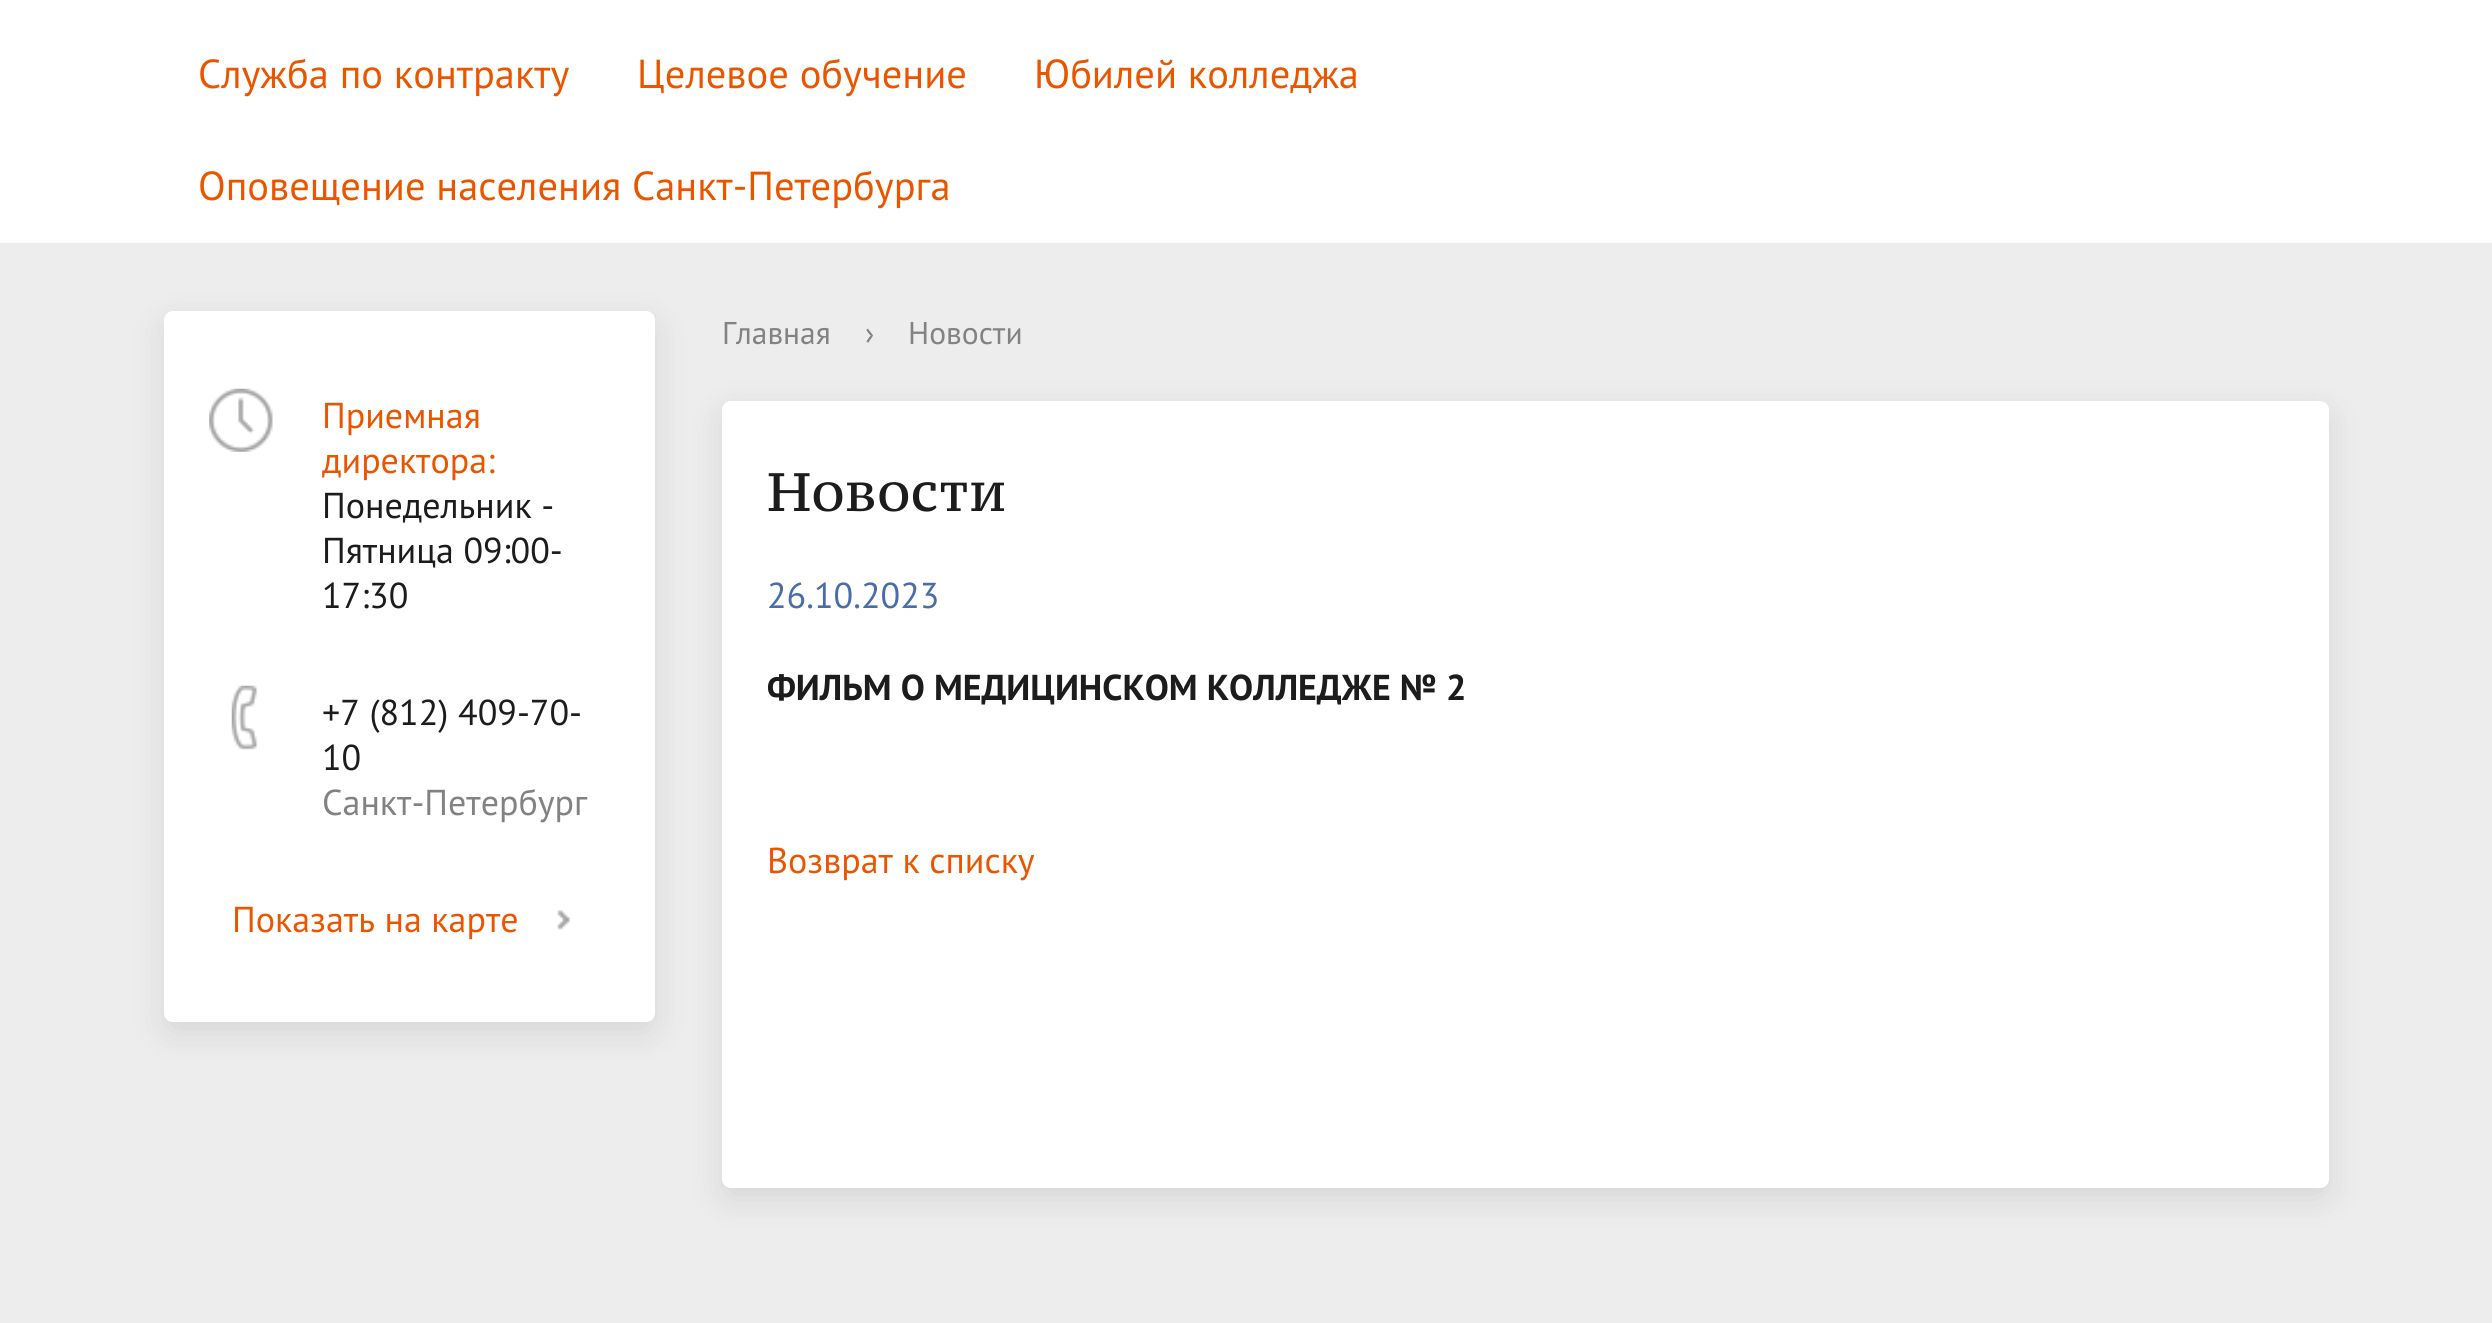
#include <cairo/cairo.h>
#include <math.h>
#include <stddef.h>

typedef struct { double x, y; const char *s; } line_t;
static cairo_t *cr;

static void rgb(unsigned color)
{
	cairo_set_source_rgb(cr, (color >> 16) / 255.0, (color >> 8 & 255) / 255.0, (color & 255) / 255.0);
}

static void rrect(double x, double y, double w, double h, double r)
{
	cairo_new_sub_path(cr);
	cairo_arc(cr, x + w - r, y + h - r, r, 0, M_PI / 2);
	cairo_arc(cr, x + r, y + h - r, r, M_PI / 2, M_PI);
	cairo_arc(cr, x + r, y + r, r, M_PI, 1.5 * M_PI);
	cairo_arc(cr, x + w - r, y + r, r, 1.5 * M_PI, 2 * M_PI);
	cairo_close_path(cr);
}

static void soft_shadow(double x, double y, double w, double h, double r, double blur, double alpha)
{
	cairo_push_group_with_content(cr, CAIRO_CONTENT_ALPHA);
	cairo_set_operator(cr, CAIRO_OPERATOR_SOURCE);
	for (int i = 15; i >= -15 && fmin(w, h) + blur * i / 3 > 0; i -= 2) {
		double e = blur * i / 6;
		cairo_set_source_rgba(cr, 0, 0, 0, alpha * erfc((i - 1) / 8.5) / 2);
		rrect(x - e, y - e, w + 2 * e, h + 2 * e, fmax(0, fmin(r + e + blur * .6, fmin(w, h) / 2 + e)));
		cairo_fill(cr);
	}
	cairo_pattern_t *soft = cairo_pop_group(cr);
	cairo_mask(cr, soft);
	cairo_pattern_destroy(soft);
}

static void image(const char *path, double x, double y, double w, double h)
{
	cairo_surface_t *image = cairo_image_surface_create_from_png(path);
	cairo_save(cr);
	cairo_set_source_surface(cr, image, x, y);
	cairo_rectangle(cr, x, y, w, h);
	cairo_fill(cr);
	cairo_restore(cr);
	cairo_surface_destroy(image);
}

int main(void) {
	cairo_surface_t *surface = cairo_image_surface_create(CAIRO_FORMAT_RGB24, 2492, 1323);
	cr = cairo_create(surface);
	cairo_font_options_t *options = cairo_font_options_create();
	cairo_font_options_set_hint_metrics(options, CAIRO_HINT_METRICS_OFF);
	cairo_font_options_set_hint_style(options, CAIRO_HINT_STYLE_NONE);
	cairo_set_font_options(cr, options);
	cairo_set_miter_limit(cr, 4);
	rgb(0xededed);
	cairo_paint(cr);
	rgb(0xffffff);
	cairo_rectangle(cr, 0, 0, 2492, 243);
	cairo_fill(cr);
	rgb(0x000000);
	soft_shadow(164, 322, 491, 711, 9, 17, 0.1);
	rgb(0xffffff);
	rrect(164, 311, 491, 711, 9);
	cairo_fill(cr);
	image("img/1.png", 209, 388, 64, 64);
	image("img/2.png", 231, 685, 27, 65);
	image("img/3.png", 557, 910, 13, 20);
	rgb(0x000000);
	soft_shadow(722, 412, 1607, 787, 9, 17, 0.1);
	rgb(0xffffff);
	rrect(722, 401, 1607, 787, 9);
	cairo_fill(cr);
	cairo_select_font_face(cr, "PT Sans", CAIRO_FONT_SLANT_NORMAL, CAIRO_FONT_WEIGHT_NORMAL);
	cairo_set_font_size(cr, 40.5);
	rgb(0xea5600);
	{
		static const line_t items[] = {
			{198, 88, "Служба по контракту"},
			{637, 88, "Целевое обучение"},
			{1034, 88, "Юбилей колледжа"},
			{198, 200, "Оповещение населения Санкт-Петербурга"},
		};
		for (size_t i = 0; i < sizeof items / sizeof *items; i++) {
			cairo_move_to(cr, items[i].x, items[i].y);
			cairo_show_text(cr, items[i].s);
		}
	}
	cairo_set_font_size(cr, 36);
	cairo_move_to(cr, 322, 428);
	cairo_show_text(cr, "Приемная");
	cairo_save(cr);
	cairo_rectangle(cr, 322, 356, 288, 297);
	cairo_clip(cr);
	cairo_move_to(cr, 322, 473);
	cairo_show_text(cr, "директора:");
	cairo_restore(cr);
	rgb(0x1c1c1c);
	{
		static const line_t items[] = {
			{322, 518, "Понедельник -"},
			{322, 563, "Пятница 09:00-"},
			{322, 608, "17:30"},
			{322, 725, "+7 (812) 409-70-"},
			{322, 770, "10"},
		};
		for (size_t i = 0; i < sizeof items / sizeof *items; i++) {
			cairo_move_to(cr, items[i].x, items[i].y);
			cairo_show_text(cr, items[i].s);
		}
	}
	rgb(0x828282);
	cairo_move_to(cr, 322, 815);
	cairo_show_text(cr, "Санкт-Петербург");
	rgb(0xea5600);
	cairo_move_to(cr, 232, 932);
	cairo_show_text(cr, "Показать на карте");
	cairo_set_font_size(cr, 31.5);
	rgb(0x828282);
	{
		static const line_t items[] = {
			{722, 344, "Главная"},
			{865, 344, "›"},
			{908, 344, "Новости"},
		};
		for (size_t i = 0; i < sizeof items / sizeof *items; i++) {
			cairo_move_to(cr, items[i].x, items[i].y);
			cairo_show_text(cr, items[i].s);
		}
	}
	cairo_select_font_face(cr, "PT Serif Caption", CAIRO_FONT_SLANT_NORMAL, CAIRO_FONT_WEIGHT_NORMAL);
	cairo_set_font_size(cr, 54);
	rgb(0x1c1c1c);
	cairo_move_to(cr, 767, 511);
	cairo_show_text(cr, "Новости");
	cairo_select_font_face(cr, "PT Sans", CAIRO_FONT_SLANT_NORMAL, CAIRO_FONT_WEIGHT_NORMAL);
	cairo_set_font_size(cr, 36);
	rgb(0x486daa);
	cairo_move_to(cr, 767, 608);
	cairo_show_text(cr, "26.10.2023");
	cairo_select_font_face(cr, "PT Sans", CAIRO_FONT_SLANT_NORMAL, CAIRO_FONT_WEIGHT_BOLD);
	rgb(0x1c1c1c);
	cairo_move_to(cr, 767, 700);
	cairo_show_text(cr, "ФИЛЬМ О МЕДИЦИНСКОМ КОЛЛЕДЖЕ № 2");
	cairo_select_font_face(cr, "PT Sans", CAIRO_FONT_SLANT_NORMAL, CAIRO_FONT_WEIGHT_NORMAL);
	rgb(0xea5600);
	cairo_move_to(cr, 767, 873);
	cairo_show_text(cr, "Возврат к списку");
	cairo_surface_write_to_png(surface, "page.png");
	cairo_font_options_destroy(options);
	cairo_destroy(cr);
	cairo_surface_destroy(surface);
	return 0;
}
